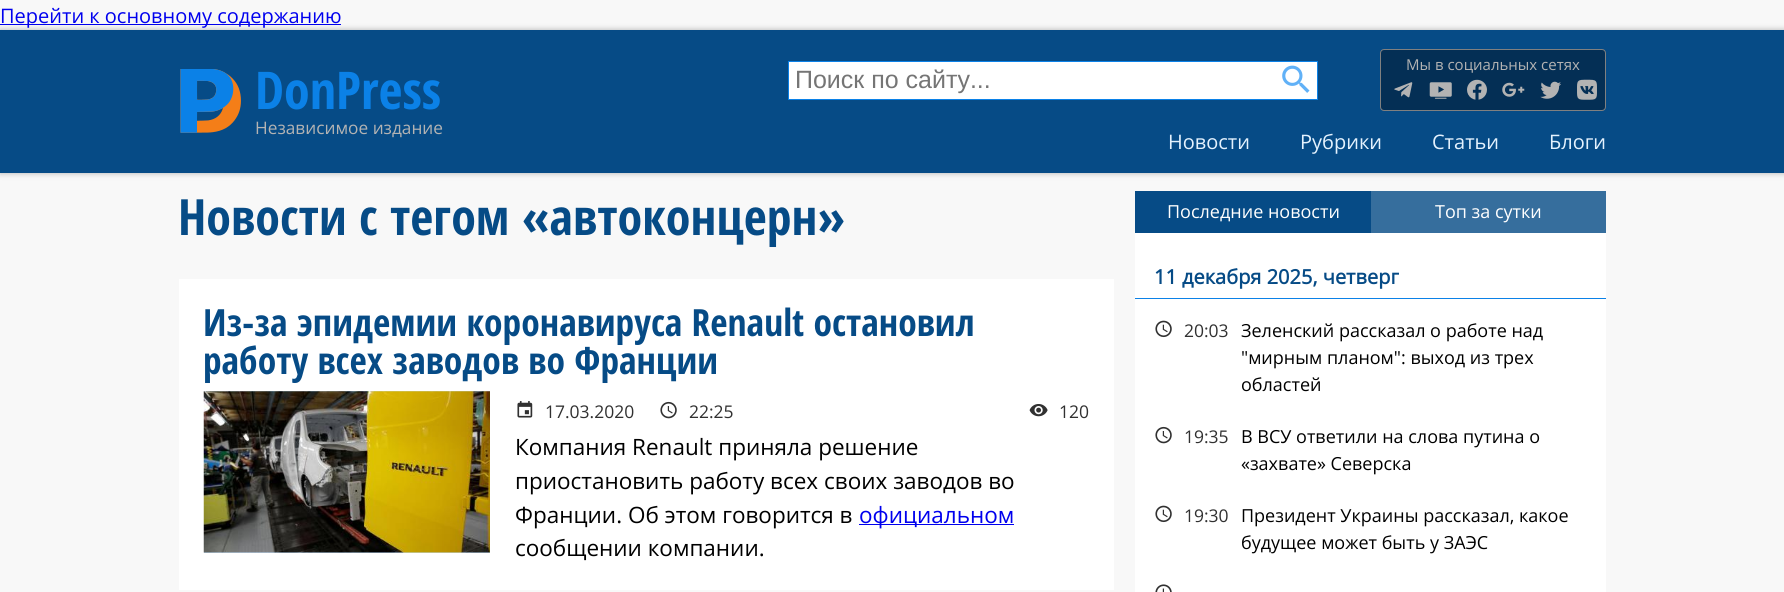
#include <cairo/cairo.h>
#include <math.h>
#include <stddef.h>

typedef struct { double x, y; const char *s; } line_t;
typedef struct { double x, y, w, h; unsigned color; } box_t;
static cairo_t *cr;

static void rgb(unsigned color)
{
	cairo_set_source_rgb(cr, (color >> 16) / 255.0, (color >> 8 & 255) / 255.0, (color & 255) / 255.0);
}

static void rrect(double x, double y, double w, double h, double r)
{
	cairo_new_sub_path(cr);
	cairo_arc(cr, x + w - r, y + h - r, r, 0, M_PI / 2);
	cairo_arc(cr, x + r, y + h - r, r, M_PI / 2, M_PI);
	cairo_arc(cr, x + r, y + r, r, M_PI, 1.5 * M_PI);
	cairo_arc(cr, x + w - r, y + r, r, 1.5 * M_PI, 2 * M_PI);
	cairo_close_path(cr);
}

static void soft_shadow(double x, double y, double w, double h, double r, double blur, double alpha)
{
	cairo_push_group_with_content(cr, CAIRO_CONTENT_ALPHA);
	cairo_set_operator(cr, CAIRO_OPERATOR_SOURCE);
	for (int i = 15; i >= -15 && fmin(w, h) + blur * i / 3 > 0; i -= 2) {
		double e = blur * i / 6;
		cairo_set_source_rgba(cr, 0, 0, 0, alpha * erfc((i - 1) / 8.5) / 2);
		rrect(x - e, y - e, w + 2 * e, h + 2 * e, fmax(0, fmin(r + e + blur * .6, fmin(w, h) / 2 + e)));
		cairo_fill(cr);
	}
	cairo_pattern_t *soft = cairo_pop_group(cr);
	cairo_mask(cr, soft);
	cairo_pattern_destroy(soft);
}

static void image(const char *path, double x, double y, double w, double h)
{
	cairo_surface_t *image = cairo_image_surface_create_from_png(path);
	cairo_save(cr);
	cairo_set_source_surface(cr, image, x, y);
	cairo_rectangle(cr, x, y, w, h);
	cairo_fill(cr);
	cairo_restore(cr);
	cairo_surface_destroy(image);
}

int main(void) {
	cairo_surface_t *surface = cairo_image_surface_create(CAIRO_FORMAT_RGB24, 1784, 592);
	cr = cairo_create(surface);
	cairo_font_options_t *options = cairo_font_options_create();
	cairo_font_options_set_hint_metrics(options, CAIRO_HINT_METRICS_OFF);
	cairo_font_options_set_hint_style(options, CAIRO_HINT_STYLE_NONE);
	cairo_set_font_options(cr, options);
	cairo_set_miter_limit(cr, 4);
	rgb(0xf8f8f8);
	cairo_paint(cr);
	rgb(0x646464);
	soft_shadow(0, 30, 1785, 143, 0, 3, 0.5);
	rgb(0x0000ee);
	cairo_rectangle(cr, 0, 24, 341, 1);
	cairo_fill(cr);
	rgb(0x064b86);
	cairo_rectangle(cr, 0, 30, 1784, 143);
	cairo_fill(cr);
	image("img/1.png", 180, 69, 61, 64);
	rgb(0x042f55);
	rrect(1380.5, 49.5, 225, 61, 3.5);
	cairo_fill_preserve(cr);
	rgb(0x808080);
	cairo_set_line_width(cr, 1);
	cairo_stroke(cr);
	image("img/2.png", 1394, 82, 19, 16);
	image("img/3.png", 1429, 82, 23, 17);
	image("img/4.png", 1467, 79, 20, 21);
	image("img/5.png", 1502, 82, 23, 15);
	image("img/6.png", 1540, 81, 21, 18);
	image("img/7.png", 1577, 79, 20, 21);
	rgb(0xffffff);
	cairo_rectangle(cr, 788.5, 61.5, 529, 38);
	cairo_fill_preserve(cr);
	rgb(0x0b81e7);
	cairo_stroke(cr);
	image("img/8.png", 1282, 65, 28, 28);
	rgb(0xffffff);
	cairo_rectangle(cr, 179, 279, 935, 311);
	cairo_fill(cr);
	rgb(0xc2e1fc);
	cairo_rectangle(cr, 204, 391, 286, 162);
	cairo_fill(cr);
	image("img/9.png", 203, 391, 287, 162);
	image("img/10.png", 517, 401, 16, 17);
	image("img/11.png", 660, 401, 17, 18);
	image("img/12.png", 1029, 404, 19, 13);
	{
		static const box_t items[] = {
			{859, 524, 155, 1, 0x0000ee},
			{1135, 191, 236, 42, 0x064b86},
			{1371, 191, 235, 42, 0x366e9d},
			{1135, 233, 471, 359, 0xffffff},
			{1135, 298, 471, 1, 0x0b81e7},
		};
		for (size_t i = 0; i < sizeof items / sizeof *items; i++) {
			rgb(items[i].color);
			cairo_rectangle(cr, items[i].x, items[i].y, items[i].w, items[i].h);
			cairo_fill(cr);
		}
	}
	image("img/13.png", 1155, 320, 17, 18);
	image("img/11.png", 1155, 426, 17, 18);
	image("img/13.png", 1155, 505, 17, 18);
	image("img/14.png", 1155, 584, 17, 8);
	cairo_select_font_face(cr, "Open Sans", CAIRO_FONT_SLANT_NORMAL, CAIRO_FONT_WEIGHT_NORMAL);
	cairo_set_font_size(cr, 20);
	rgb(0x0000ee);
	cairo_move_to(cr, 0, 23);
	cairo_show_text(cr, "Перейти к основному содержанию");
	cairo_select_font_face(cr, "Open Sans Condensed", CAIRO_FONT_SLANT_NORMAL, CAIRO_FONT_WEIGHT_BOLD);
	cairo_set_font_size(cr, 52);
	rgb(0x0b81e7);
	cairo_move_to(cr, 255, 109);
	cairo_show_text(cr, "DonPress");
	cairo_select_font_face(cr, "Open Sans", CAIRO_FONT_SLANT_NORMAL, CAIRO_FONT_WEIGHT_NORMAL);
	cairo_set_font_size(cr, 17.25);
	rgb(0xb3b3b3);
	cairo_move_to(cr, 255, 134);
	cairo_show_text(cr, "Независимое издание");
	cairo_set_font_size(cr, 15);
	cairo_move_to(cr, 1406, 70);
	cairo_show_text(cr, "Мы в социальных сетях");
	cairo_select_font_face(cr, "Liberation Sans", CAIRO_FONT_SLANT_NORMAL, CAIRO_FONT_WEIGHT_NORMAL);
	cairo_set_font_size(cr, 25);
	rgb(0x757575);
	cairo_move_to(cr, 795, 88);
	cairo_show_text(cr, "Поиск по сайту...");
	cairo_select_font_face(cr, "Open Sans", CAIRO_FONT_SLANT_NORMAL, CAIRO_FONT_WEIGHT_NORMAL);
	cairo_set_font_size(cr, 20);
	rgb(0xe4f2fe);
	{
		static const line_t items[] = {
			{1168, 149, "Новости"},
			{1300, 149, "Рубрики"},
			{1432, 149, "Статьи"},
			{1549, 149, "Блоги"},
		};
		for (size_t i = 0; i < sizeof items / sizeof *items; i++) {
			cairo_move_to(cr, items[i].x, items[i].y);
			cairo_show_text(cr, items[i].s);
		}
	}
	cairo_select_font_face(cr, "Open Sans Condensed", CAIRO_FONT_SLANT_NORMAL, CAIRO_FONT_WEIGHT_BOLD);
	cairo_set_font_size(cr, 50);
	rgb(0x064b86);
	cairo_move_to(cr, 178, 235);
	cairo_show_text(cr, "Новости с тегом «автоконцерн»");
	cairo_set_font_size(cr, 37.5);
	cairo_move_to(cr, 203, 336);
	cairo_show_text(cr, "Из-за эпидемии коронавируса Renault остановил");
	cairo_move_to(cr, 203, 374);
	cairo_show_text(cr, "работу всех заводов во Франции");
	cairo_select_font_face(cr, "Open Sans", CAIRO_FONT_SLANT_NORMAL, CAIRO_FONT_WEIGHT_NORMAL);
	cairo_set_font_size(cr, 17.5);
	rgb(0x313131);
	{
		static const line_t items[] = {
			{545, 418, "17.03.2020"},
			{689, 418, "22:25"},
			{1059, 418, "120"},
		};
		for (size_t i = 0; i < sizeof items / sizeof *items; i++) {
			cairo_move_to(cr, items[i].x, items[i].y);
			cairo_show_text(cr, items[i].s);
		}
	}
	cairo_set_font_size(cr, 22.5);
	rgb(0x000000);
	{
		static const line_t items[] = {
			{515, 455, "Компания Renault приняла решение"},
			{515, 489, "приостановить работу всех своих заводов во"},
			{515, 523, "Франции. Об этом говорится в"},
		};
		for (size_t i = 0; i < sizeof items / sizeof *items; i++) {
			cairo_move_to(cr, items[i].x, items[i].y);
			cairo_show_text(cr, items[i].s);
		}
	}
	rgb(0x0000ee);
	cairo_move_to(cr, 859, 523);
	cairo_show_text(cr, "официальном");
	rgb(0x000000);
	cairo_move_to(cr, 515, 556);
	cairo_show_text(cr, "сообщении компании.");
	cairo_set_font_size(cr, 18);
	rgb(0xffffff);
	cairo_move_to(cr, 1167, 218);
	cairo_show_text(cr, "Последние новости");
	cairo_move_to(cr, 1435, 218);
	cairo_show_text(cr, "Топ за сутки");
	cairo_select_font_face(cr, "Open Sans", CAIRO_FONT_SLANT_NORMAL, CAIRO_FONT_WEIGHT_BOLD);
	cairo_set_font_size(cr, 20);
	rgb(0x064b86);
	cairo_move_to(cr, 1154, 284);
	cairo_show_text(cr, "11 декабря 2025, четверг");
	cairo_select_font_face(cr, "Open Sans", CAIRO_FONT_SLANT_NORMAL, CAIRO_FONT_WEIGHT_NORMAL);
	cairo_set_font_size(cr, 17.5);
	rgb(0x313131);
	cairo_move_to(cr, 1184, 337);
	cairo_show_text(cr, "20:03");
	cairo_set_font_size(cr, 18);
	rgb(0x000000);
	{
		static const line_t items[] = {
			{1241, 337, "Зеленский рассказал о работе над"},
			{1241, 364, "\"мирным планом\": выход из трех"},
			{1241, 391, "областей"},
		};
		for (size_t i = 0; i < sizeof items / sizeof *items; i++) {
			cairo_move_to(cr, items[i].x, items[i].y);
			cairo_show_text(cr, items[i].s);
		}
	}
	cairo_set_font_size(cr, 17.5);
	rgb(0x313131);
	cairo_move_to(cr, 1184, 443);
	cairo_show_text(cr, "19:35");
	cairo_set_font_size(cr, 18);
	rgb(0x000000);
	cairo_move_to(cr, 1241, 443);
	cairo_show_text(cr, "В ВСУ ответили на слова путина о");
	cairo_move_to(cr, 1241, 470);
	cairo_show_text(cr, "«захвате» Северска");
	cairo_set_font_size(cr, 17.5);
	rgb(0x313131);
	cairo_move_to(cr, 1184, 522);
	cairo_show_text(cr, "19:30");
	cairo_set_font_size(cr, 18);
	rgb(0x000000);
	cairo_move_to(cr, 1241, 522);
	cairo_show_text(cr, "Президент Украины рассказал, какое");
	cairo_move_to(cr, 1241, 549);
	cairo_show_text(cr, "будущее может быть у ЗАЭС");
	cairo_surface_write_to_png(surface, "page.png");
	cairo_font_options_destroy(options);
	cairo_destroy(cr);
	cairo_surface_destroy(surface);
	return 0;
}
